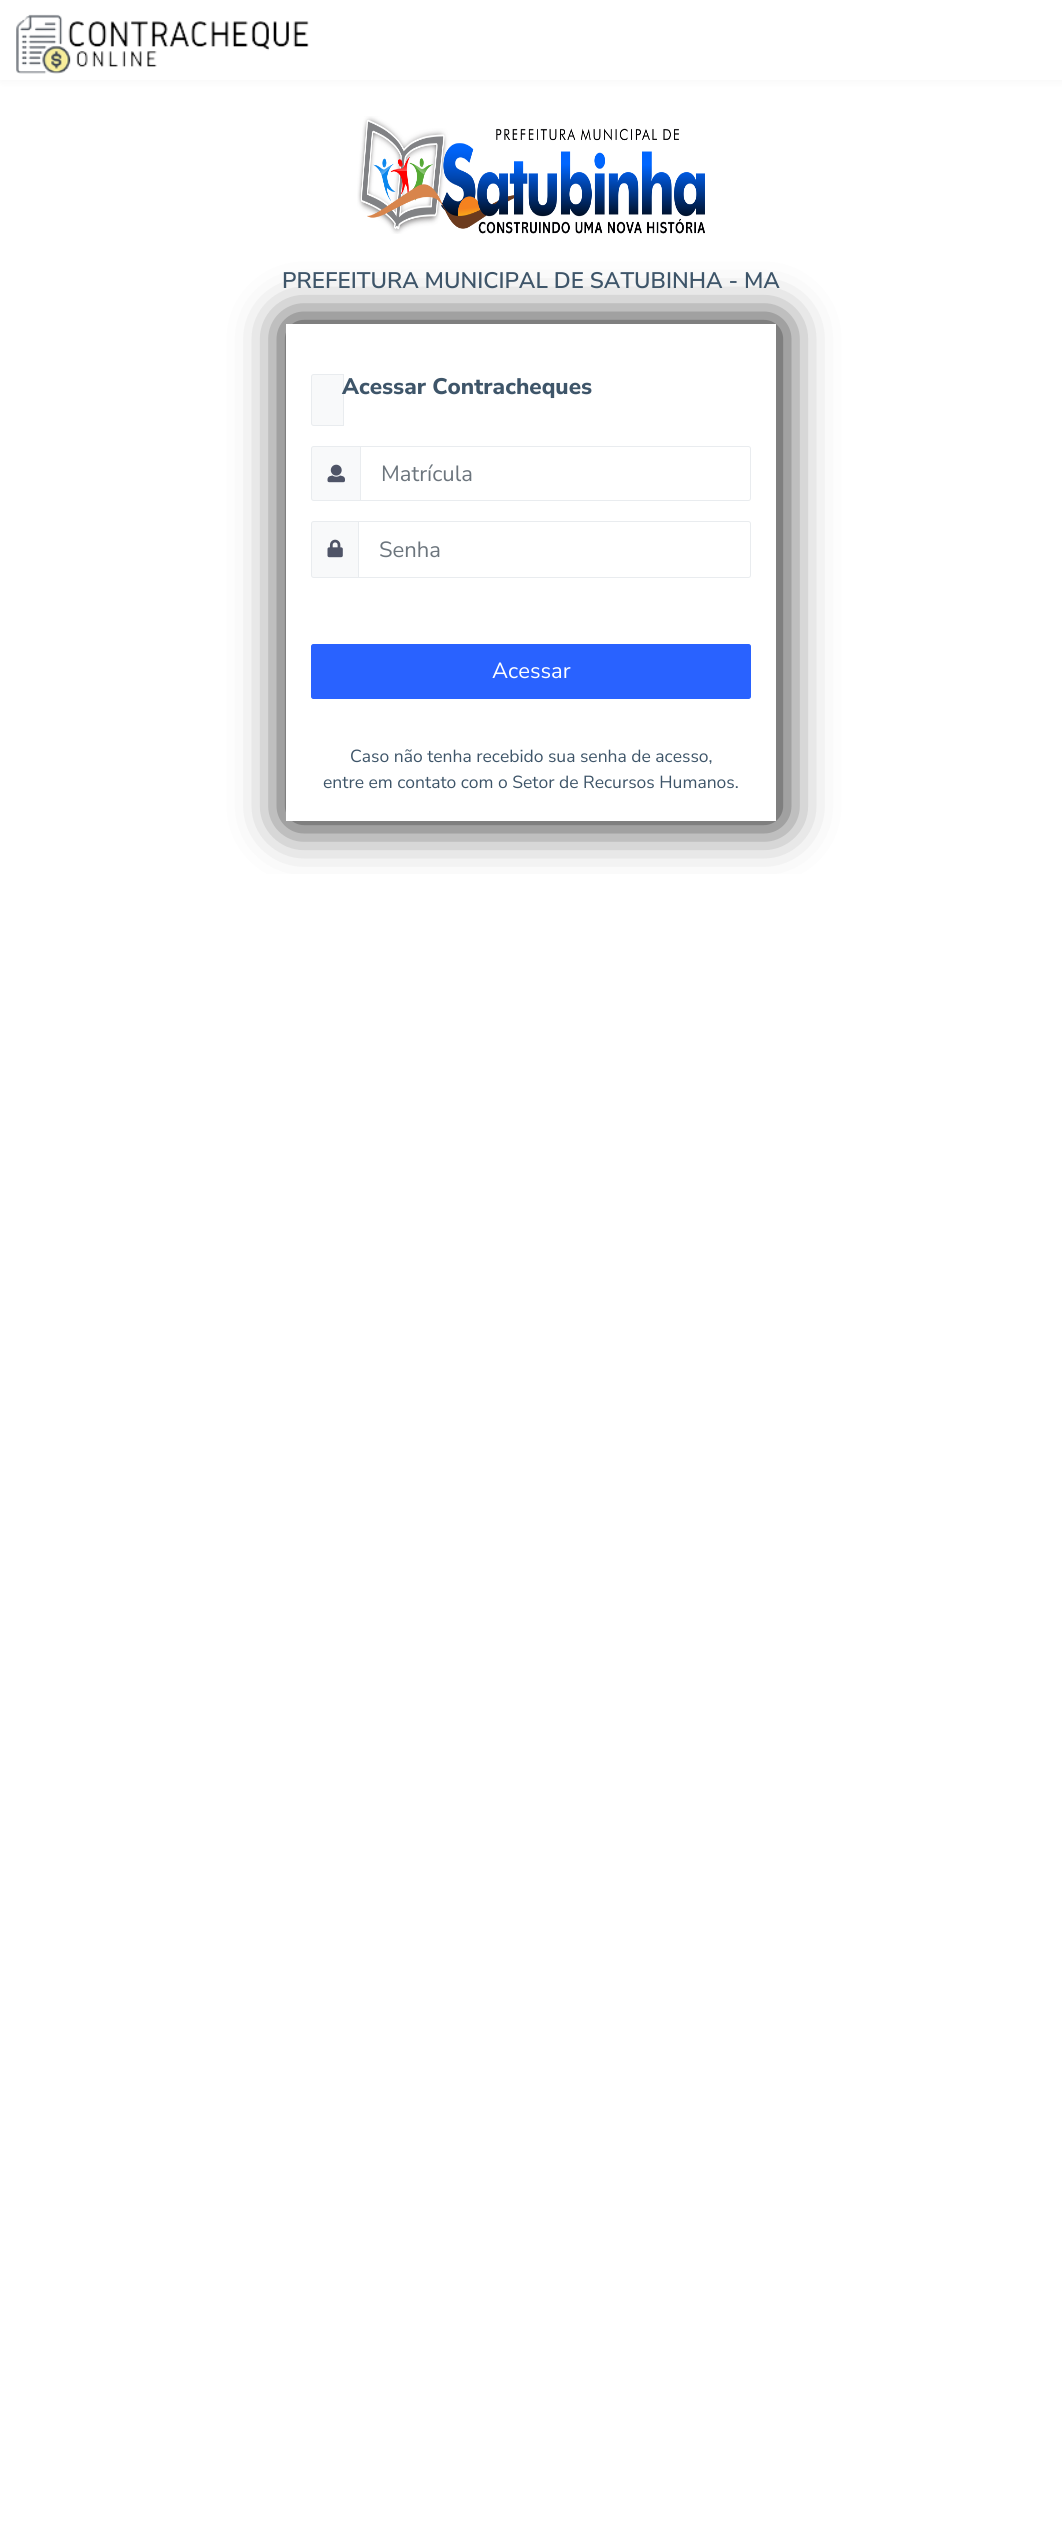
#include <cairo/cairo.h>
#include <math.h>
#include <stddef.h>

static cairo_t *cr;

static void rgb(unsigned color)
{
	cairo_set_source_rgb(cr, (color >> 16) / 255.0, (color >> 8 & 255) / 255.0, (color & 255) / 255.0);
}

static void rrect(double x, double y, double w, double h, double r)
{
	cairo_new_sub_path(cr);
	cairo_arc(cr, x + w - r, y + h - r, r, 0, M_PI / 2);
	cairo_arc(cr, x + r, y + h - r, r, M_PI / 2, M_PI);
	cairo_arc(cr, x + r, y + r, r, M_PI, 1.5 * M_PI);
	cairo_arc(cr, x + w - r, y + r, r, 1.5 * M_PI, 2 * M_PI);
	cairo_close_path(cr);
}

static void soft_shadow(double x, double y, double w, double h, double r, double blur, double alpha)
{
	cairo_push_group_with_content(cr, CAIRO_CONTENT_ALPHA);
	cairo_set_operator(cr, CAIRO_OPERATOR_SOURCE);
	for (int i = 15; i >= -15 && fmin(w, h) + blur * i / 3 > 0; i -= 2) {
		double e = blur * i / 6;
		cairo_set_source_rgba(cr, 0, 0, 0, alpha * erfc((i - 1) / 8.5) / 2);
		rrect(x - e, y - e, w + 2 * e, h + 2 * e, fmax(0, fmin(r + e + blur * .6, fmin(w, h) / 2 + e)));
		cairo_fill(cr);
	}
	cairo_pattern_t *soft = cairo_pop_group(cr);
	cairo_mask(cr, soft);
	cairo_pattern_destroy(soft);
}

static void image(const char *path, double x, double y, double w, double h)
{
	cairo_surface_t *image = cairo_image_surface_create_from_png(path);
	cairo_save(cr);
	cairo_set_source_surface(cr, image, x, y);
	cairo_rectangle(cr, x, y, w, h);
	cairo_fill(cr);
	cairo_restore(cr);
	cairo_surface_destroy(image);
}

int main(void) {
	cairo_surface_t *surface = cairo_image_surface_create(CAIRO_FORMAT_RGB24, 1062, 2541);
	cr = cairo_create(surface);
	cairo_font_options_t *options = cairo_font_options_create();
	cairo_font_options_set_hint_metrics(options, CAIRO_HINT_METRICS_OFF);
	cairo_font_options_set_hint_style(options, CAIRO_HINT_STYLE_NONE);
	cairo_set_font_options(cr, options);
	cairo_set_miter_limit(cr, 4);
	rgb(0xffffff);
	cairo_paint(cr);
	rgb(0x000000);
	soft_shadow(1, 0, 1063, 80, 0, 4.5, 0.05);
	rgb(0xffffff);
	cairo_rectangle(cr, 0, 0, 1062, 80);
	cairo_fill(cr);
	image("img/1.png", 16, 14, 293, 60);
	image("img/2.png", 357, 116, 348, 118);
	cairo_save(cr);
	cairo_rectangle(cr, 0, 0, 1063, 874);
	cairo_clip(cr);
	rgb(0x000000);
	soft_shadow(289, 324, 490, 497, 0, 25, 1);
	cairo_restore(cr);
	cairo_rectangle(cr, 286, 324, 490, 497);
	cairo_fill(cr);
	rgb(0xf8f9fa);
	cairo_new_path(cr);
	cairo_move_to(cr, 313.5, 374.5);
	cairo_line_to(cr, 343.5, 374.5);
	cairo_line_to(cr, 343.5, 425.5);
	cairo_line_to(cr, 313.5, 425.5);
	cairo_curve_to(cr, 312.5, 425.5, 311.5, 424.5, 311.5, 423.5);
	cairo_line_to(cr, 311.5, 376.5);
	cairo_curve_to(cr, 311.5, 375.5, 312.5, 374.5, 313.5, 374.5);
	cairo_close_path(cr);
	cairo_fill_preserve(cr);
	rgb(0xe9ecef);
	cairo_set_line_width(cr, 1);
	cairo_stroke(cr);
	rgb(0xf8f9fa);
	cairo_new_path(cr);
	cairo_move_to(cr, 313.5, 446.5);
	cairo_line_to(cr, 360.5, 446.5);
	cairo_line_to(cr, 360.5, 500.5);
	cairo_line_to(cr, 313.5, 500.5);
	cairo_curve_to(cr, 312.5, 500.5, 311.5, 499.5, 311.5, 498.5);
	cairo_line_to(cr, 311.5, 448.5);
	cairo_curve_to(cr, 311.5, 447.5, 312.5, 446.5, 313.5, 446.5);
	cairo_close_path(cr);
	cairo_fill_preserve(cr);
	rgb(0xe9ecef);
	cairo_stroke(cr);
	image("img/3.png", 327, 464, 18, 19);
	cairo_new_path(cr);
	cairo_move_to(cr, 360.5, 446.5);
	cairo_line_to(cr, 748.5, 446.5);
	cairo_curve_to(cr, 749.5, 446.5, 750.5, 447.5, 750.5, 448.5);
	cairo_line_to(cr, 750.5, 498.5);
	cairo_curve_to(cr, 750.5, 499.5, 749.5, 500.5, 748.5, 500.5);
	cairo_line_to(cr, 360.5, 500.5);
	cairo_close_path(cr);
	cairo_stroke(cr);
	rgb(0xf8f9fa);
	cairo_new_path(cr);
	cairo_move_to(cr, 313.5, 521.5);
	cairo_line_to(cr, 358.5, 521.5);
	cairo_line_to(cr, 358.5, 577.5);
	cairo_line_to(cr, 313.5, 577.5);
	cairo_curve_to(cr, 312.5, 577.5, 311.5, 576.5, 311.5, 575.5);
	cairo_line_to(cr, 311.5, 523.5);
	cairo_curve_to(cr, 311.5, 522.5, 312.5, 521.5, 313.5, 521.5);
	cairo_close_path(cr);
	cairo_fill_preserve(cr);
	rgb(0xe9ecef);
	cairo_stroke(cr);
	image("img/4.png", 327, 539, 16, 19);
	cairo_new_path(cr);
	cairo_move_to(cr, 358.5, 521.5);
	cairo_line_to(cr, 748.5, 521.5);
	cairo_curve_to(cr, 749.5, 521.5, 750.5, 522.5, 750.5, 523.5);
	cairo_line_to(cr, 750.5, 575.5);
	cairo_curve_to(cr, 750.5, 576.5, 749.5, 577.5, 748.5, 577.5);
	cairo_line_to(cr, 358.5, 577.5);
	cairo_close_path(cr);
	cairo_stroke(cr);
	rgb(0x2962ff);
	rrect(311.5, 644.5, 439, 54, 2);
	cairo_fill_preserve(cr);
	cairo_stroke(cr);
	cairo_select_font_face(cr, "Nunito Sans SemiBold", CAIRO_FONT_SLANT_NORMAL, CAIRO_FONT_WEIGHT_NORMAL);
	cairo_set_font_size(cr, 22.5);
	rgb(0x3e5569);
	cairo_move_to(cr, 282, 288);
	cairo_show_text(cr, "PREFEITURA MUNICIPAL DE SATUBINHA - MA");
	cairo_select_font_face(cr, "Nunito Sans ExtraBold", CAIRO_FONT_SLANT_NORMAL, CAIRO_FONT_WEIGHT_NORMAL);
	cairo_move_to(cr, 342, 394);
	cairo_show_text(cr, "Acessar Contracheques");
	cairo_select_font_face(cr, "Nunito Sans", CAIRO_FONT_SLANT_NORMAL, CAIRO_FONT_WEIGHT_NORMAL);
	cairo_set_font_size(cr, 22);
	rgb(0x6c757d);
	cairo_move_to(cr, 381, 481);
	cairo_show_text(cr, "Matrícula");
	cairo_move_to(cr, 379, 557);
	cairo_show_text(cr, "Senha");
	rgb(0xffffff);
	cairo_move_to(cr, 492, 678);
	cairo_show_text(cr, "Acessar");
	cairo_set_font_size(cr, 17.5);
	rgb(0x3e5569);
	cairo_move_to(cr, 350, 762);
	cairo_show_text(cr, "Caso não tenha recebido sua senha de acesso,");
	cairo_move_to(cr, 323, 788);
	cairo_show_text(cr, "entre em contato com o Setor de Recursos Humanos.");
	cairo_surface_write_to_png(surface, "page.png");
	cairo_font_options_destroy(options);
	cairo_destroy(cr);
	cairo_surface_destroy(surface);
	return 0;
}
